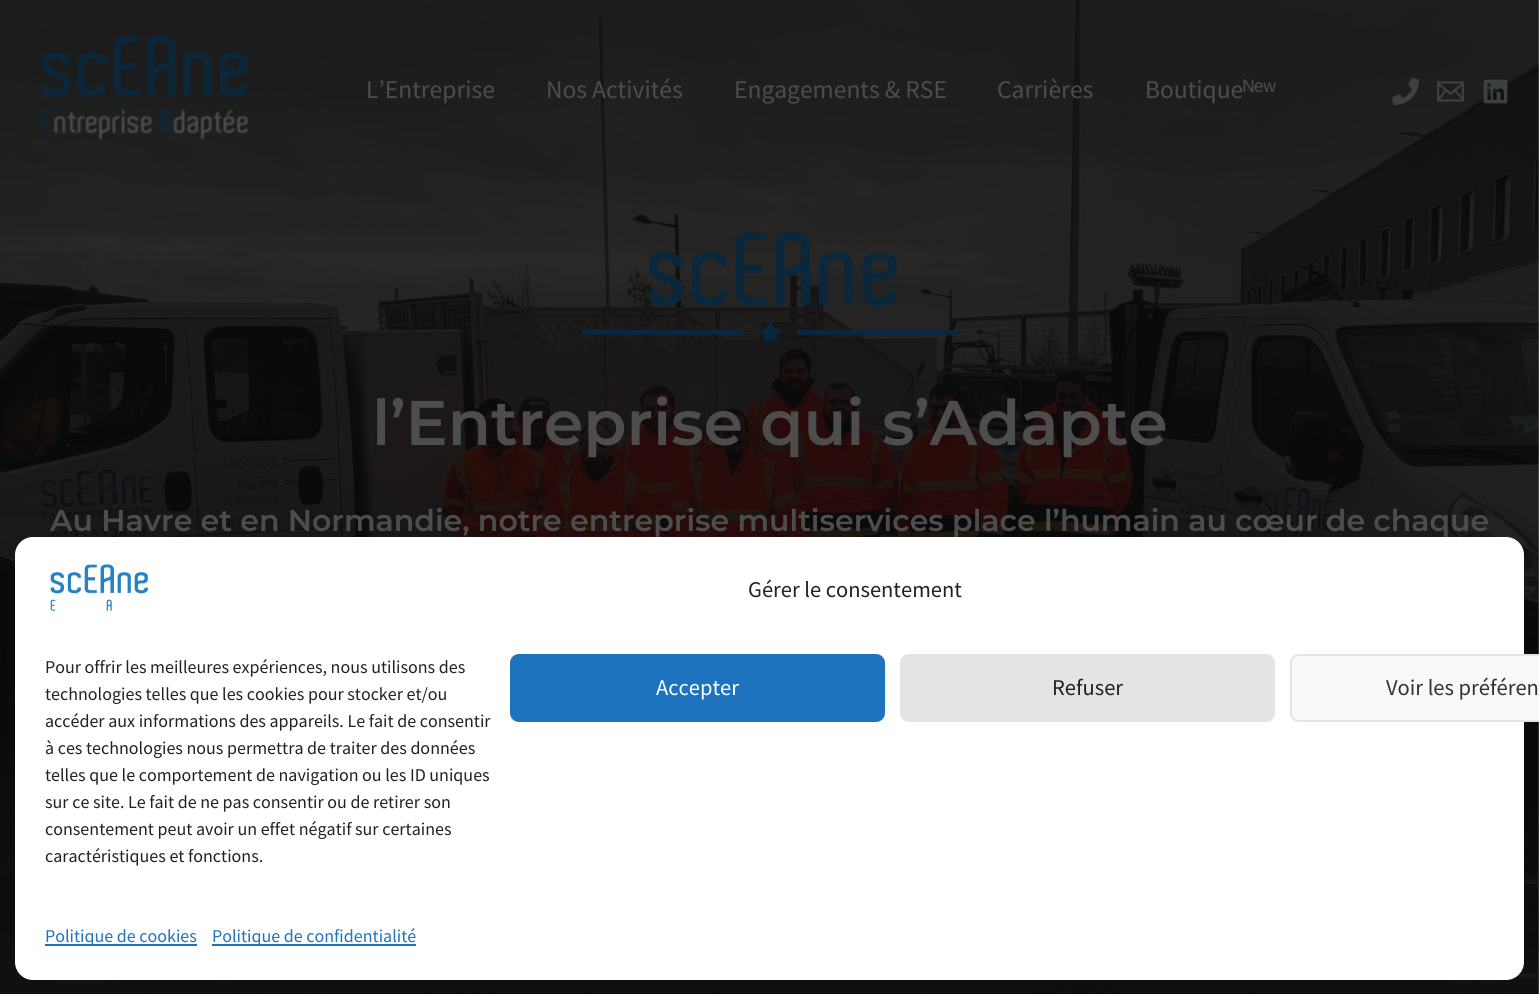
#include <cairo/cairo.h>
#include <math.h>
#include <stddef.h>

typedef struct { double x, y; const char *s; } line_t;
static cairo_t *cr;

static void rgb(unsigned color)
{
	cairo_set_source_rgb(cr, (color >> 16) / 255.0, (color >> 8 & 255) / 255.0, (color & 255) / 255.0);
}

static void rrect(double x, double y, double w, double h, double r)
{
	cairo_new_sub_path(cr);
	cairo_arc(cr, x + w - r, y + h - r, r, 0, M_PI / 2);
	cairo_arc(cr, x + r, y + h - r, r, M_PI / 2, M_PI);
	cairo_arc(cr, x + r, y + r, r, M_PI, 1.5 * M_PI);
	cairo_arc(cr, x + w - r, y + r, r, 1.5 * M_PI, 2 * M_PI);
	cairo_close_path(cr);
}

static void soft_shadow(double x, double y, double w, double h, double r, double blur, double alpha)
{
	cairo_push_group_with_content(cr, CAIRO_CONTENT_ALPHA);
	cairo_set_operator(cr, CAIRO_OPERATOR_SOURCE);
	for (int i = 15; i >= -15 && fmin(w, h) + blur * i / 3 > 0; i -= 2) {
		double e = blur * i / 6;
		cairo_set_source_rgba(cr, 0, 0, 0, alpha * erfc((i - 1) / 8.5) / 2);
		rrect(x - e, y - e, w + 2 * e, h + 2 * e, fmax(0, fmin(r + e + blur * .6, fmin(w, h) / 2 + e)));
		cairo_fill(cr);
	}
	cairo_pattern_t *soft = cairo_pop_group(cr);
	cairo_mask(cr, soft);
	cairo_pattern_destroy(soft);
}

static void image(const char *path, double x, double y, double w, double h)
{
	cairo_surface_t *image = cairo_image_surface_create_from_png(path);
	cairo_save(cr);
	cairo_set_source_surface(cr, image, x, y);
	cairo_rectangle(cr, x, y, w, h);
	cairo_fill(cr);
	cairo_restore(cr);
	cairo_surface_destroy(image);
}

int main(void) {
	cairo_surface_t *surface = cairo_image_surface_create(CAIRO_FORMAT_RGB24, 1539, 994);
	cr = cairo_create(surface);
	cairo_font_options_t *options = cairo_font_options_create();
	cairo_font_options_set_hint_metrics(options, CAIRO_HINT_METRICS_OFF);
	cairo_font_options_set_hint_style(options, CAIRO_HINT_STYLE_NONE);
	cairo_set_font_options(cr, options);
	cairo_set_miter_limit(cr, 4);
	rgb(0xffffff);
	cairo_paint(cr);
	image("img/5.png", 0, 0, 1539, 994);
	image("img/1.png", 41, 34, 208, 106);
	image("img/2.png", 1392, 78, 27, 27);
	image("img/3.png", 1437, 81, 27, 21);
	image("img/4.png", 1483, 79, 25, 25);
	image("img/6.png", 648, 231, 249, 75);
	rgb(0x0b273b);
	cairo_rectangle(cr, 582, 330, 162, 5);
	cairo_fill(cr);
	image("img/7.png", 760, 322, 21, 21);
	cairo_rectangle(cr, 797, 330, 160, 5);
	cairo_fill(cr);
	cairo_save(cr);
	cairo_set_fill_rule(cr, CAIRO_FILL_RULE_EVEN_ODD);
	cairo_new_path(cr);
	cairo_move_to(cr, 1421, 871);
	cairo_line_to(cr, 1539, 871);
	cairo_line_to(cr, 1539, 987);
	cairo_line_to(cr, 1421, 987);
	cairo_close_path(cr);
	cairo_move_to(cr, 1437, 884);
	cairo_line_to(cr, 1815, 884);
	cairo_curve_to(cr, 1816.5, 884, 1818, 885.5, 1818, 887);
	cairo_line_to(cr, 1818, 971);
	cairo_curve_to(cr, 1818, 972.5, 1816.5, 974, 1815, 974);
	cairo_line_to(cr, 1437, 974);
	cairo_curve_to(cr, 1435.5, 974, 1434, 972.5, 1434, 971);
	cairo_line_to(cr, 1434, 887);
	cairo_curve_to(cr, 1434, 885.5, 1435.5, 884, 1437, 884);
	cairo_close_path(cr);
	cairo_clip(cr);
	rgb(0x262626);
	soft_shadow(1434, 884, 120, 90, 3, 4, 1);
	cairo_restore(cr);
	rgb(0xffffff);
	rrect(15, 537, 1509, 443, 18);
	cairo_fill(cr);
	image("img/8.png", 50, 564, 98, 47);
	rgb(0x1e73be);
	rrect(511, 655, 373, 66, 8);
	cairo_fill_preserve(cr);
	cairo_stroke(cr);
	rgb(0xe4e4e4);
	rrect(901, 655, 373, 66, 8);
	cairo_fill_preserve(cr);
	cairo_stroke(cr);
	rgb(0xf9f9f9);
	rrect(1291, 655, 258, 66, 8);
	cairo_fill_preserve(cr);
	rgb(0xe4e4e4);
	cairo_stroke(cr);
	rgb(0x1e73be);
	cairo_rectangle(cr, 45, 944, 152, 2);
	cairo_fill(cr);
	cairo_rectangle(cr, 212, 944, 204, 2);
	cairo_fill(cr);
	cairo_select_font_face(cr, "Source Sans Pro", CAIRO_FONT_SLANT_NORMAL, CAIRO_FONT_WEIGHT_NORMAL);
	cairo_set_font_size(cr, 25.5);
	rgb(0x4d4d4d);
	{
		static const line_t items[] = {
			{366, 98, "L’Entreprise"},
			{546, 98, "Nos Activités"},
			{734, 98, "Engagements & RSE"},
			{997, 98, "Carrières"},
			{1145, 98, "Boutique"},
		};
		for (size_t i = 0; i < sizeof items / sizeof *items; i++) {
			cairo_move_to(cr, items[i].x, items[i].y);
			cairo_show_text(cr, items[i].s);
		}
	}
	cairo_select_font_face(cr, "Liberation Sans", CAIRO_FONT_SLANT_NORMAL, CAIRO_FONT_WEIGHT_NORMAL);
	cairo_move_to(cr, 1243, 98);
	cairo_show_text(cr, "ᴺᵉʷ");
	cairo_select_font_face(cr, "Montserrat SemiBold", CAIRO_FONT_SLANT_NORMAL, CAIRO_FONT_WEIGHT_NORMAL);
	cairo_set_font_size(cr, 63);
	cairo_move_to(cr, 372, 445);
	cairo_show_text(cr, "l’Entreprise qui s’Adapte");
	cairo_set_font_size(cr, 30);
	cairo_move_to(cr, 50, 531);
	cairo_show_text(cr, "Au Havre et en Normandie, notre entreprise multiservices place l’humain au cœur de chaque");
	cairo_select_font_face(cr, "Source Sans Pro", CAIRO_FONT_SLANT_NORMAL, CAIRO_FONT_WEIGHT_NORMAL);
	cairo_set_font_size(cr, 22.5);
	rgb(0x222222);
	cairo_move_to(cr, 748, 597);
	cairo_show_text(cr, "Gérer le consentement");
	cairo_set_font_size(cr, 18);
	{
		static const line_t items[] = {
			{45, 673, "Pour offrir les meilleures expériences, nous utilisons des"},
			{45, 700, "technologies telles que les cookies pour stocker et/ou"},
			{45, 727, "accéder aux informations des appareils. Le fait de consentir"},
			{45, 754, "à ces technologies nous permettra de traiter des données"},
			{45, 781, "telles que le comportement de navigation ou les ID uniques"},
			{45, 808, "sur ce site. Le fait de ne pas consentir ou de retirer son"},
			{45, 835, "consentement peut avoir un effet négatif sur certaines"},
			{45, 862, "caractéristiques et fonctions."},
		};
		for (size_t i = 0; i < sizeof items / sizeof *items; i++) {
			cairo_move_to(cr, items[i].x, items[i].y);
			cairo_show_text(cr, items[i].s);
		}
	}
	cairo_set_font_size(cr, 22.5);
	rgb(0xffffff);
	cairo_move_to(cr, 656, 695);
	cairo_show_text(cr, "Accepter");
	rgb(0x222222);
	cairo_move_to(cr, 1052, 695);
	cairo_show_text(cr, "Refuser");
	rgb(0x333333);
	cairo_move_to(cr, 1386, 695);
	cairo_show_text(cr, "Voir les préféren");
	cairo_set_font_size(cr, 18);
	rgb(0x1e73be);
	cairo_move_to(cr, 45, 942);
	cairo_show_text(cr, "Politique de cookies");
	cairo_move_to(cr, 212, 942);
	cairo_show_text(cr, "Politique de confidentialité");
	cairo_surface_write_to_png(surface, "page.png");
	cairo_font_options_destroy(options);
	cairo_destroy(cr);
	cairo_surface_destroy(surface);
	return 0;
}
